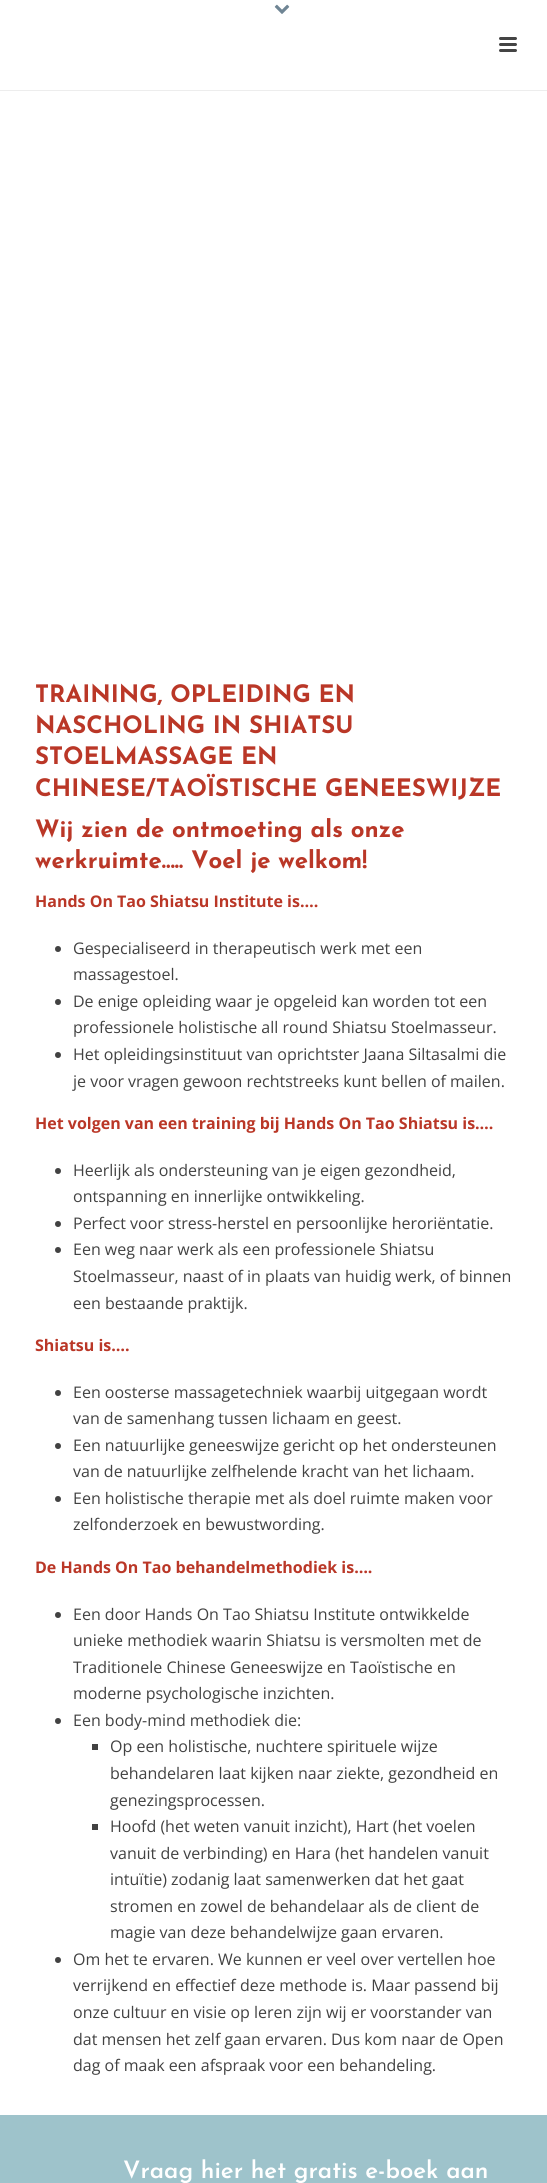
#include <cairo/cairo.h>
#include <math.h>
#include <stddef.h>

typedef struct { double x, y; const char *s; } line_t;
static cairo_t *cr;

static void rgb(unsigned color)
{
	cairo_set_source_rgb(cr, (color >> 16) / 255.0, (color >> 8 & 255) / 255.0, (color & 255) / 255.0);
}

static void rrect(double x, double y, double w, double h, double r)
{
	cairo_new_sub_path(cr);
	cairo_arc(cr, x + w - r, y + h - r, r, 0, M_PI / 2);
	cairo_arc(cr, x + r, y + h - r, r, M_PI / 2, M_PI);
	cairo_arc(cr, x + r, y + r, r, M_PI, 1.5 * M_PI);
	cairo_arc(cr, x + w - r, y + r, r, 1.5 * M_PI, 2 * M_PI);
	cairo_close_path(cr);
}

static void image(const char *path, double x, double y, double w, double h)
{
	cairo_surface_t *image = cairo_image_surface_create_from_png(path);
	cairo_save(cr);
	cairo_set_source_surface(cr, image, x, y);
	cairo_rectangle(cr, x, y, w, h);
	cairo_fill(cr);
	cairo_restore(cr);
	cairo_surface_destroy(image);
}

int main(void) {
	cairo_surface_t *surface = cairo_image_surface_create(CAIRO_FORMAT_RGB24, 547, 2183);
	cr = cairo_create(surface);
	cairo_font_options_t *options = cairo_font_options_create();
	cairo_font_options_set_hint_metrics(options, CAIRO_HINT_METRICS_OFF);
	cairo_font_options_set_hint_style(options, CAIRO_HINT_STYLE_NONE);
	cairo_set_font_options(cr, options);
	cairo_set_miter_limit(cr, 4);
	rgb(0xffffff);
	cairo_paint(cr);
	rgb(0xededed);
	cairo_rectangle(cr, 0, 90, 547, 1);
	cairo_fill(cr);
	image("img/1.png", 274, 4, 16, 10);
	rgb(0x444444);
	rrect(499, 37, 18, 3, 1.5);
	cairo_fill(cr);
	rrect(499, 43, 18, 3, 1.5);
	cairo_fill(cr);
	rrect(499, 49, 18, 3, 1.5);
	cairo_fill(cr);
	rgb(0x424242);
	cairo_arc(cr, 58, 949, 3, 0, 2 * M_PI);
	cairo_fill(cr);
	cairo_arc(cr, 58, 1002, 3, 0, 2 * M_PI);
	cairo_fill(cr);
	cairo_arc(cr, 58, 1055, 3, 0, 2 * M_PI);
	cairo_fill(cr);
	cairo_arc(cr, 58, 1171, 3, 0, 2 * M_PI);
	cairo_fill(cr);
	cairo_arc(cr, 58, 1224, 3, 0, 2 * M_PI);
	cairo_fill(cr);
	cairo_arc(cr, 58, 1250, 3, 0, 2 * M_PI);
	cairo_fill(cr);
	cairo_arc(cr, 58, 1393, 3, 0, 2 * M_PI);
	cairo_fill(cr);
	cairo_arc(cr, 58, 1446, 3, 0, 2 * M_PI);
	cairo_fill(cr);
	cairo_arc(cr, 58, 1499, 3, 0, 2 * M_PI);
	cairo_fill(cr);
	cairo_arc(cr, 58, 1615, 3, 0, 2 * M_PI);
	cairo_fill(cr);
	cairo_arc(cr, 58, 1721, 3, 0, 2 * M_PI);
	cairo_fill(cr);
	cairo_rectangle(cr, 92, 1744, 6, 6);
	cairo_fill(cr);
	cairo_rectangle(cr, 92, 1824, 6, 6);
	cairo_fill(cr);
	cairo_arc(cr, 58, 1960, 3, 0, 2 * M_PI);
	cairo_fill(cr);
	rgb(0x9ec3cb);
	cairo_rectangle(cr, 0, 2115, 547, 68);
	cairo_fill(cr);
	cairo_select_font_face(cr, "Josefin Sans", CAIRO_FONT_SLANT_NORMAL, CAIRO_FONT_WEIGHT_BOLD);
	cairo_set_font_size(cr, 24);
	rgb(0xba3727);
	{
		static const line_t items[] = {
			{35, 702, "TRAINING, OPLEIDING EN"},
			{35, 733, "NASCHOLING IN SHIATSU"},
			{35, 764, "STOELMASSAGE EN"},
			{35, 796, "CHINESE/TAOÏSTISCHE GENEESWIJZE"},
			{35, 837, "Wij zien de ontmoeting als onze"},
			{35, 868, "werkruimte….. Voel je welkom!"},
		};
		for (size_t i = 0; i < sizeof items / sizeof *items; i++) {
			cairo_move_to(cr, items[i].x, items[i].y);
			cairo_show_text(cr, items[i].s);
		}
	}
	cairo_select_font_face(cr, "Open Sans", CAIRO_FONT_SLANT_NORMAL, CAIRO_FONT_WEIGHT_BOLD);
	cairo_set_font_size(cr, 16);
	cairo_move_to(cr, 35, 907);
	cairo_show_text(cr, "Hands On Tao Shiatsu Institute is….");
	cairo_select_font_face(cr, "Open Sans", CAIRO_FONT_SLANT_NORMAL, CAIRO_FONT_WEIGHT_NORMAL);
	rgb(0x424242);
	{
		static const line_t items[] = {
			{73, 954, "Gespecialiseerd in therapeutisch werk met een"},
			{73, 980, "massagestoel."},
			{73, 1007, "De enige opleiding waar je opgeleid kan worden tot een"},
			{73, 1033, "professionele holistische all round Shiatsu Stoelmasseur."},
			{73, 1060, "Het opleidingsinstituut van oprichtster Jaana Siltasalmi die"},
			{73, 1087, "je voor vragen gewoon rechtstreeks kunt bellen of mailen."},
		};
		for (size_t i = 0; i < sizeof items / sizeof *items; i++) {
			cairo_move_to(cr, items[i].x, items[i].y);
			cairo_show_text(cr, items[i].s);
		}
	}
	cairo_select_font_face(cr, "Open Sans", CAIRO_FONT_SLANT_NORMAL, CAIRO_FONT_WEIGHT_BOLD);
	rgb(0xba3727);
	cairo_move_to(cr, 35, 1129);
	cairo_show_text(cr, "Het volgen van een training bij Hands On Tao Shiatsu is….");
	cairo_select_font_face(cr, "Open Sans", CAIRO_FONT_SLANT_NORMAL, CAIRO_FONT_WEIGHT_NORMAL);
	rgb(0x424242);
	{
		static const line_t items[] = {
			{73, 1176, "Heerlijk als ondersteuning van je eigen gezondheid,"},
			{73, 1202, "ontspanning en innerlijke ontwikkeling."},
			{73, 1229, "Perfect voor stress-herstel en persoonlijke heroriëntatie."},
			{73, 1255, "Een weg naar werk als een professionele Shiatsu"},
			{73, 1282, "Stoelmasseur, naast of in plaats van huidig werk, of binnen"},
			{73, 1309, "een bestaande praktijk."},
		};
		for (size_t i = 0; i < sizeof items / sizeof *items; i++) {
			cairo_move_to(cr, items[i].x, items[i].y);
			cairo_show_text(cr, items[i].s);
		}
	}
	cairo_select_font_face(cr, "Open Sans", CAIRO_FONT_SLANT_NORMAL, CAIRO_FONT_WEIGHT_BOLD);
	rgb(0xba3727);
	cairo_move_to(cr, 35, 1351);
	cairo_show_text(cr, "Shiatsu is….");
	cairo_select_font_face(cr, "Open Sans", CAIRO_FONT_SLANT_NORMAL, CAIRO_FONT_WEIGHT_NORMAL);
	rgb(0x424242);
	{
		static const line_t items[] = {
			{73, 1398, "Een oosterse massagetechniek waarbij uitgegaan wordt"},
			{73, 1424, "van de samenhang tussen lichaam en geest."},
			{73, 1451, "Een natuurlijke geneeswijze gericht op het ondersteunen"},
			{73, 1477, "van de natuurlijke zelfhelende kracht van het lichaam."},
			{73, 1504, "Een holistische therapie met als doel ruimte maken voor"},
			{73, 1530, "zelfonderzoek en bewustwording."},
		};
		for (size_t i = 0; i < sizeof items / sizeof *items; i++) {
			cairo_move_to(cr, items[i].x, items[i].y);
			cairo_show_text(cr, items[i].s);
		}
	}
	cairo_select_font_face(cr, "Open Sans", CAIRO_FONT_SLANT_NORMAL, CAIRO_FONT_WEIGHT_BOLD);
	rgb(0xba3727);
	cairo_move_to(cr, 35, 1573);
	cairo_show_text(cr, "De Hands On Tao behandelmethodiek is….");
	cairo_select_font_face(cr, "Open Sans", CAIRO_FONT_SLANT_NORMAL, CAIRO_FONT_WEIGHT_NORMAL);
	rgb(0x424242);
	{
		static const line_t items[] = {
			{73, 1620, "Een door Hands On Tao Shiatsu Institute ontwikkelde"},
			{73, 1646, "unieke methodiek waarin Shiatsu is versmolten met de"},
			{73, 1673, "Traditionele Chinese Geneeswijze en Taoïstische en"},
			{73, 1699, "moderne psychologische inzichten."},
			{73, 1726, "Een body-mind methodiek die:"},
			{110, 1752, "Op een holistische, nuchtere spirituele wijze"},
			{110, 1779, "behandelaren laat kijken naar ziekte, gezondheid en"},
			{110, 1806, "genezingsprocessen."},
			{110, 1832, "Hoofd (het weten vanuit inzicht), Hart (het voelen"},
			{110, 1859, "vanuit de verbinding) en Hara (het handelen vanuit"},
			{110, 1885, "intuïtie) zodanig laat samenwerken dat het gaat"},
			{110, 1912, "stromen en zowel de behandelaar als de client de"},
			{110, 1938, "magie van deze behandelwijze gaan ervaren."},
			{73, 1965, "Om het te ervaren. We kunnen er veel over vertellen hoe"},
			{73, 1991, "verrijkend en effectief deze methode is. Maar passend bij"},
			{73, 2018, "onze cultuur en visie op leren zijn wij er voorstander van"},
			{73, 2045, "dat mensen het zelf gaan ervaren. Dus kom naar de Open"},
			{73, 2071, "dag of maak een afspraak voor een behandeling."},
		};
		for (size_t i = 0; i < sizeof items / sizeof *items; i++) {
			cairo_move_to(cr, items[i].x, items[i].y);
			cairo_show_text(cr, items[i].s);
		}
	}
	cairo_select_font_face(cr, "Josefin Sans SemiBold", CAIRO_FONT_SLANT_NORMAL, CAIRO_FONT_WEIGHT_NORMAL);
	cairo_set_font_size(cr, 24);
	rgb(0xffffff);
	cairo_move_to(cr, 123, 2178);
	cairo_show_text(cr, "Vraag hier het gratis e-boek aan");
	cairo_surface_write_to_png(surface, "page.png");
	cairo_font_options_destroy(options);
	cairo_destroy(cr);
	cairo_surface_destroy(surface);
	return 0;
}
